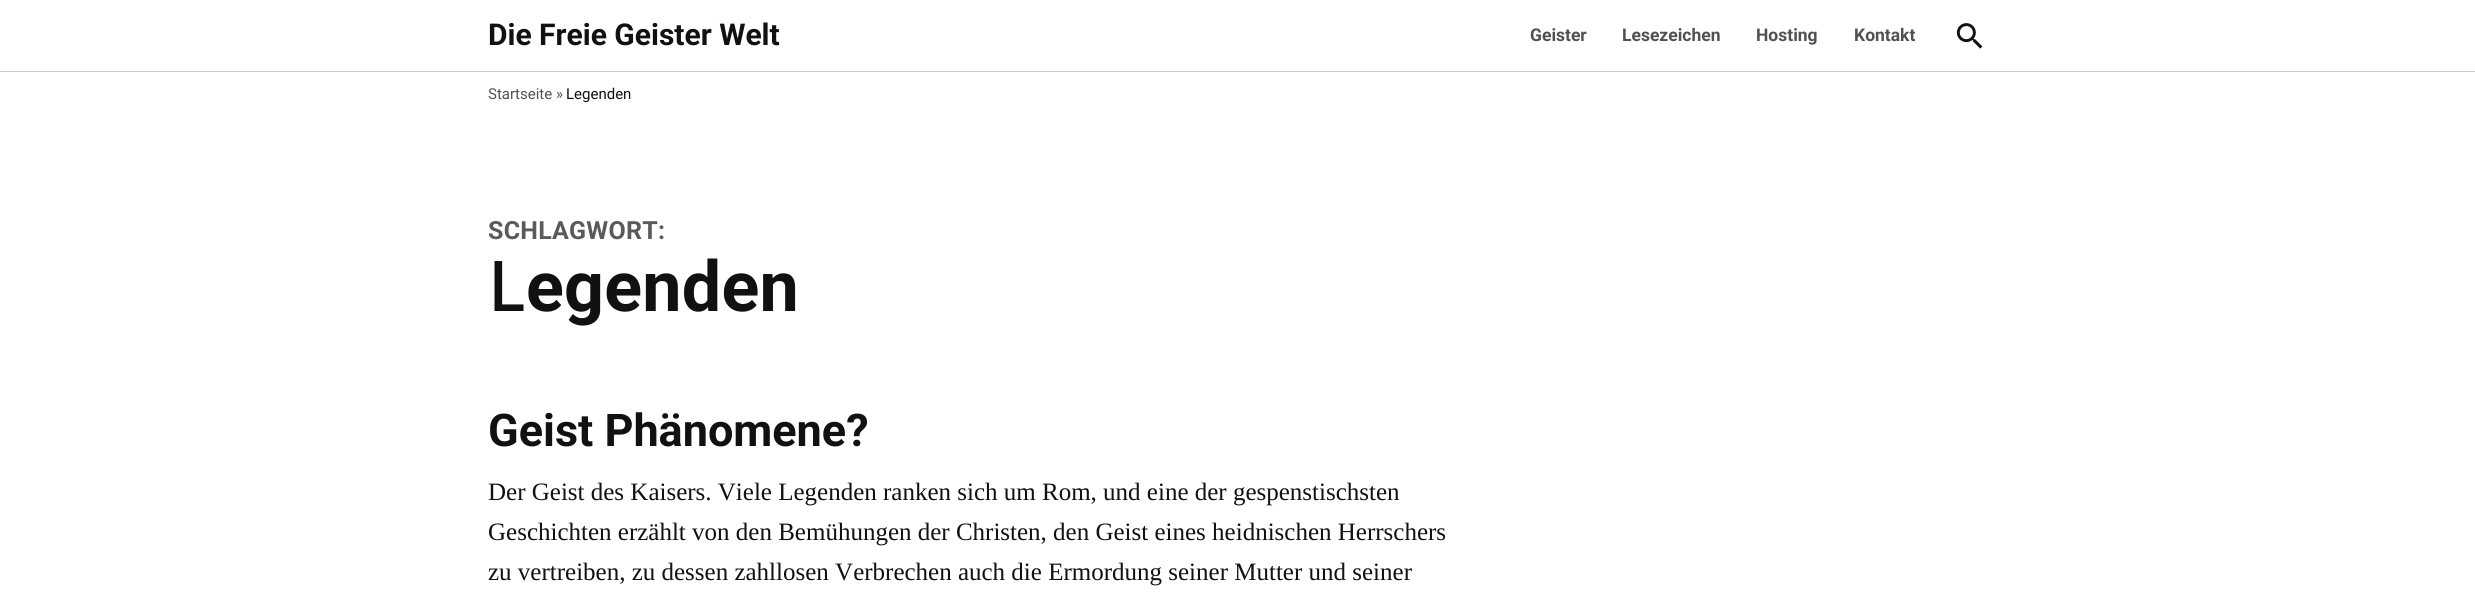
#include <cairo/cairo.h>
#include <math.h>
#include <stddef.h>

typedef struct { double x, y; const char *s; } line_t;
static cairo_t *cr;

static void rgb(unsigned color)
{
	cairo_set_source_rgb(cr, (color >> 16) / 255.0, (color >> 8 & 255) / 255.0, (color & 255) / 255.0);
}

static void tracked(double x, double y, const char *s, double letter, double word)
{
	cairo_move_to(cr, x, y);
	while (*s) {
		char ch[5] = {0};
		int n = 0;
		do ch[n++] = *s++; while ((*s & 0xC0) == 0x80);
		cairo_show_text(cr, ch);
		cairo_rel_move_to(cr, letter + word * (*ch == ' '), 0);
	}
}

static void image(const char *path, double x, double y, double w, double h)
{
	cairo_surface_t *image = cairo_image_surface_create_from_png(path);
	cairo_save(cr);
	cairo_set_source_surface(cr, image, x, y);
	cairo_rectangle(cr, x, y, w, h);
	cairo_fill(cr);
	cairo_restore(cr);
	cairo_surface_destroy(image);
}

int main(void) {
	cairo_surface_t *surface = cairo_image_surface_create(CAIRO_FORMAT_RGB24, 2475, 598);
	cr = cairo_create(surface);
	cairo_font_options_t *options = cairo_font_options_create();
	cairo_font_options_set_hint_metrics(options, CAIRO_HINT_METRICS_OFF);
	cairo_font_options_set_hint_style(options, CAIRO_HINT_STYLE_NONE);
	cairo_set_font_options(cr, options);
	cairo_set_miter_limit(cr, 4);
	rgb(0xffffff);
	cairo_paint(cr);
	rgb(0xcccccc);
	cairo_rectangle(cr, 0, 71, 2475, 1);
	cairo_fill(cr);
	image("img/1.png", 1956, 23, 27, 26);
	cairo_select_font_face(cr, "Roboto", CAIRO_FONT_SLANT_NORMAL, CAIRO_FONT_WEIGHT_BOLD);
	cairo_set_font_size(cr, 30);
	rgb(0x111111);
	cairo_move_to(cr, 488, 45);
	cairo_show_text(cr, "Die Freie Geister Welt");
	cairo_set_font_size(cr, 17.5);
	rgb(0x515151);
	{
		static const line_t items[] = {
			{1530, 41, "Geister"},
			{1622, 41, "Lesezeichen"},
			{1756, 41, "Hosting"},
			{1854, 41, "Kontakt"},
		};
		for (size_t i = 0; i < sizeof items / sizeof *items; i++) {
			cairo_move_to(cr, items[i].x, items[i].y);
			cairo_show_text(cr, items[i].s);
		}
	}
	cairo_select_font_face(cr, "Roboto", CAIRO_FONT_SLANT_NORMAL, CAIRO_FONT_WEIGHT_NORMAL);
	cairo_set_font_size(cr, 15);
	cairo_move_to(cr, 488, 99);
	cairo_show_text(cr, "Startseite »");
	rgb(0x111111);
	cairo_move_to(cr, 566, 99);
	cairo_show_text(cr, "Legenden");
	cairo_select_font_face(cr, "Roboto", CAIRO_FONT_SLANT_NORMAL, CAIRO_FONT_WEIGHT_BOLD);
	cairo_set_font_size(cr, 25);
	rgb(0x5a5a5a);
	tracked(488, 239, "SCHLAGWORT:", 0.25, 0);
	cairo_select_font_face(cr, "Noto Sans Medium", CAIRO_FONT_SLANT_NORMAL, CAIRO_FONT_WEIGHT_NORMAL);
	cairo_set_font_size(cr, 70);
	rgb(0x111111);
	tracked(488, 311, "L", 0.25, 0);
	cairo_select_font_face(cr, "Roboto", CAIRO_FONT_SLANT_NORMAL, CAIRO_FONT_WEIGHT_BOLD);
	tracked(526, 311, "egenden", 0.25, 0);
	cairo_set_font_size(cr, 45);
	cairo_move_to(cr, 488, 446);
	cairo_show_text(cr, "Geist Phänomene?");
	cairo_select_font_face(cr, "Liberation Serif", CAIRO_FONT_SLANT_NORMAL, CAIRO_FONT_WEIGHT_NORMAL);
	cairo_set_font_size(cr, 25);
	{
		static const line_t items[] = {
			{488, 500, "Der Geist des Kaisers. Viele Legenden ranken sich um Rom, und eine der gespenstischsten"},
			{488, 540, "Geschichten erzählt von den Bemühungen der Christen, den Geist eines heidnischen Herrschers"},
			{488, 580, "zu vertreiben, zu dessen zahllosen Verbrechen auch die Ermordung seiner Mutter und seiner"},
		};
		for (size_t i = 0; i < sizeof items / sizeof *items; i++) {
			cairo_move_to(cr, items[i].x, items[i].y);
			cairo_show_text(cr, items[i].s);
		}
	}
	cairo_surface_write_to_png(surface, "page.png");
	cairo_font_options_destroy(options);
	cairo_destroy(cr);
	cairo_surface_destroy(surface);
	return 0;
}
